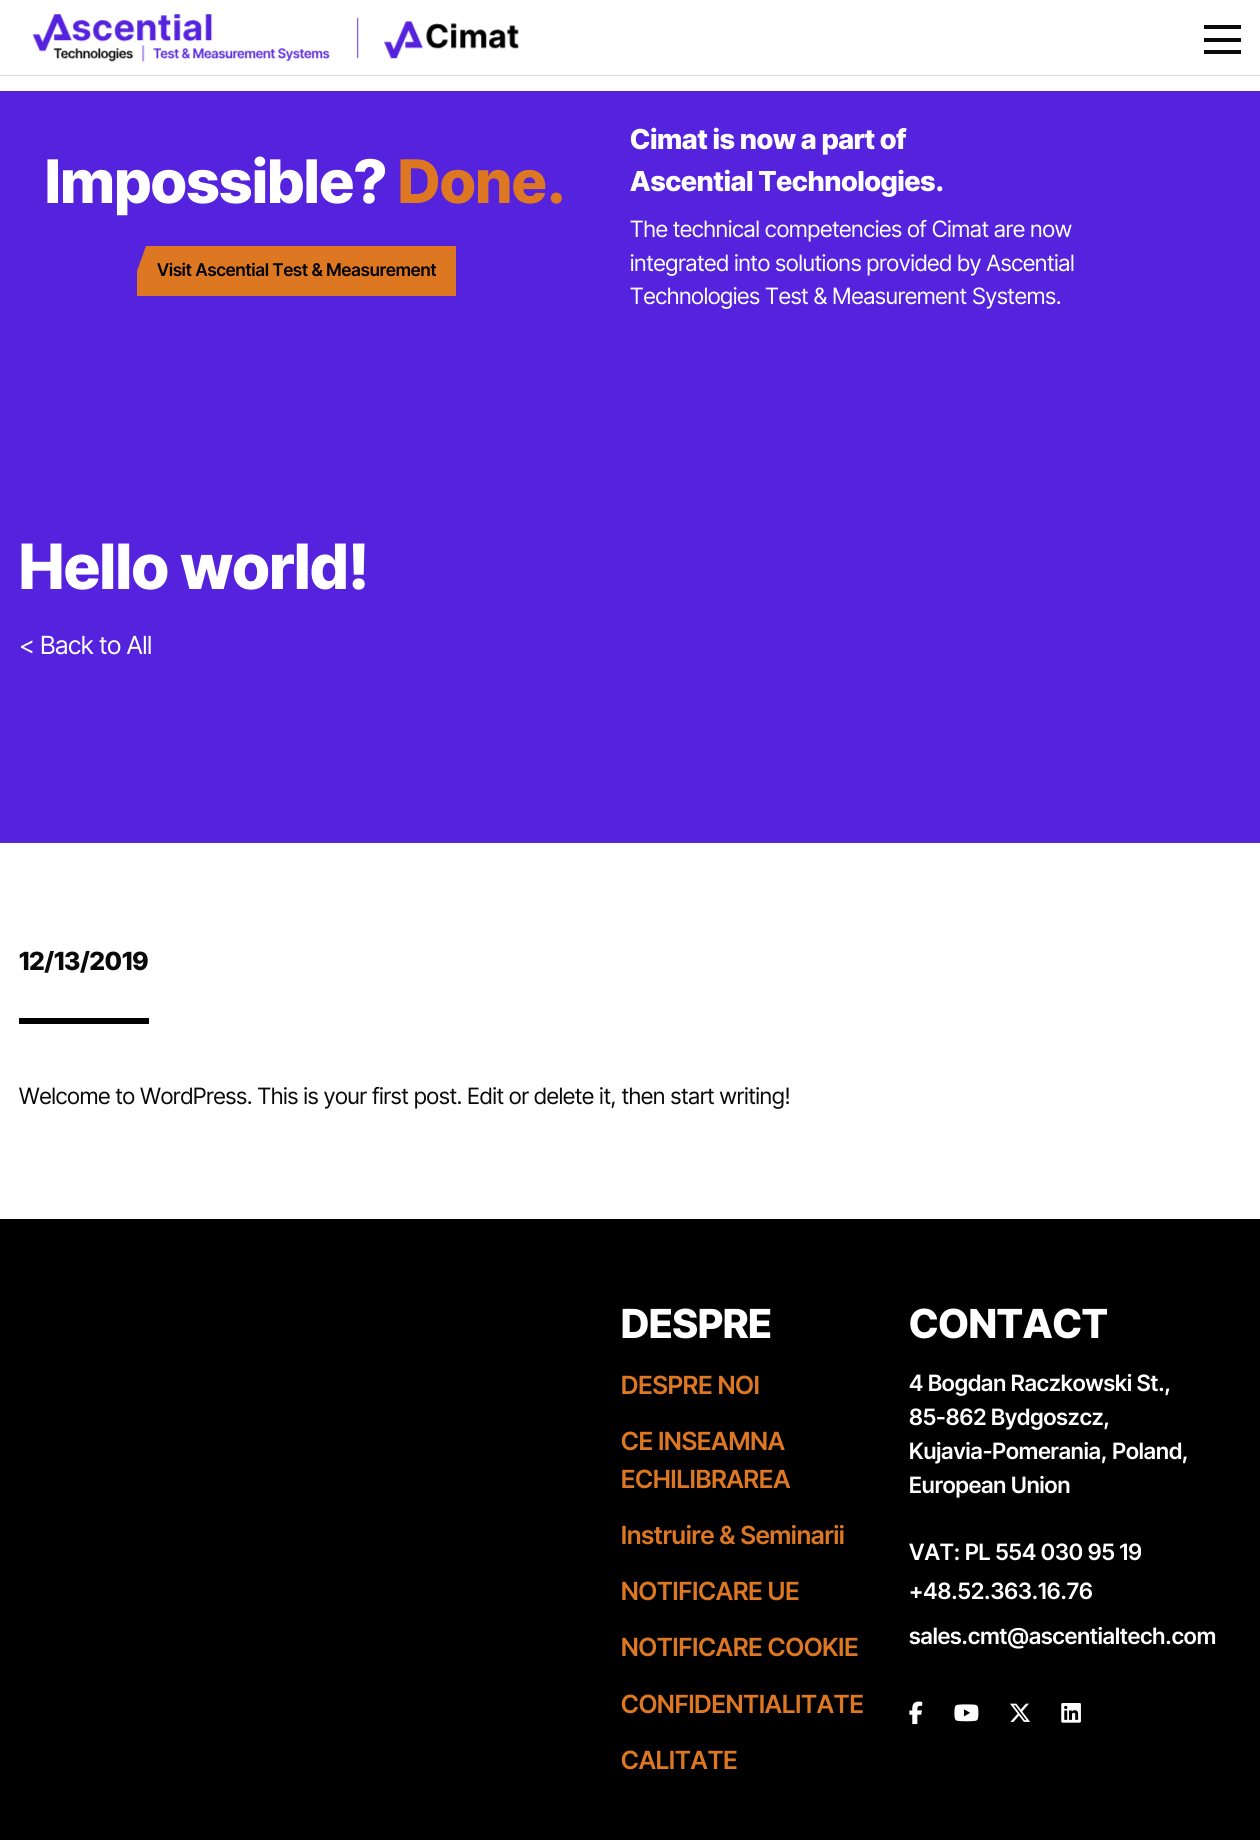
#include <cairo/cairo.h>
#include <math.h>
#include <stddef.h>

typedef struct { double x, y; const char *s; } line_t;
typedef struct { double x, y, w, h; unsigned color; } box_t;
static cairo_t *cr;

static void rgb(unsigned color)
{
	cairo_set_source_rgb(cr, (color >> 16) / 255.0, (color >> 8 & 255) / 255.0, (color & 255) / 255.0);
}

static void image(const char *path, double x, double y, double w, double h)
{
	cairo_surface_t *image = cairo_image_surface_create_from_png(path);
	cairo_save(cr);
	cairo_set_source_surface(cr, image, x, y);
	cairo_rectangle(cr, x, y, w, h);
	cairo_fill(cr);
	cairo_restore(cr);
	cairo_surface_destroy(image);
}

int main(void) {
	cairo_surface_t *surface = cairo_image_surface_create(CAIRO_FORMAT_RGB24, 1260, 1840);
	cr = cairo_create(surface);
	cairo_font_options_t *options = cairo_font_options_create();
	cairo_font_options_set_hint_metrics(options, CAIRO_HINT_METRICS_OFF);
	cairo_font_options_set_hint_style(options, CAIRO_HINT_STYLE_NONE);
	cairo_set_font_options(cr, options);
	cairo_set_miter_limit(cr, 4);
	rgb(0xffffff);
	cairo_paint(cr);
	rgb(0xd7dadd);
	cairo_rectangle(cr, 0, 75, 1260, 1);
	cairo_fill(cr);
	image("img/1.png", 32, 14, 487, 48);
	{
		static const box_t items[] = {
			{1204, 25, 37, 4, 0x0a0a0a},
			{1204, 38, 37, 4, 0x0a0a0a},
			{1204, 50, 37, 4, 0x0a0a0a},
			{0, 91, 1260, 752, 0x5522dd},
		};
		for (size_t i = 0; i < sizeof items / sizeof *items; i++) {
			rgb(items[i].color);
			cairo_rectangle(cr, items[i].x, items[i].y, items[i].w, items[i].h);
			cairo_fill(cr);
		}
	}
	rgb(0xdd7722);
	cairo_new_path(cr);
	cairo_move_to(cr, 456, 246);
	cairo_line_to(cr, 456, 296);
	cairo_line_to(cr, 137, 296);
	cairo_line_to(cr, 137, 271);
	cairo_line_to(cr, 146, 246);
	cairo_close_path(cr);
	cairo_fill(cr);
	rgb(0x000000);
	cairo_rectangle(cr, 19, 1018, 130, 6);
	cairo_fill(cr);
	cairo_rectangle(cr, 0, 1219, 1260, 621);
	cairo_fill(cr);
	image("img/2.png", 909, 1701, 14, 24);
	image("img/3.png", 954, 1704, 25, 18);
	image("img/4.png", 1010, 1703, 20, 19);
	image("img/5.png", 1061, 1703, 20, 20);
	cairo_select_font_face(cr, "Inter Tight ExtraBold", CAIRO_FONT_SLANT_NORMAL, CAIRO_FONT_WEIGHT_NORMAL);
	cairo_set_font_size(cr, 60);
	rgb(0xffffff);
	cairo_move_to(cr, 45, 203);
	cairo_show_text(cr, "Impossible?");
	rgb(0xdd7722);
	cairo_move_to(cr, 398, 203);
	cairo_show_text(cr, "Done.");
	cairo_select_font_face(cr, "Inter Tight SemiBold", CAIRO_FONT_SLANT_NORMAL, CAIRO_FONT_WEIGHT_NORMAL);
	cairo_set_font_size(cr, 17.5);
	rgb(0x000000);
	cairo_move_to(cr, 157, 276);
	cairo_show_text(cr, "Visit Ascential Test & Measurement");
	cairo_select_font_face(cr, "Inter Tight ExtraBold", CAIRO_FONT_SLANT_NORMAL, CAIRO_FONT_WEIGHT_NORMAL);
	cairo_set_font_size(cr, 27.5);
	rgb(0xffffff);
	cairo_move_to(cr, 630, 149);
	cairo_show_text(cr, "Cimat is now a part of");
	cairo_move_to(cr, 630, 191);
	cairo_show_text(cr, "Ascential Technologies.");
	cairo_select_font_face(cr, "Inter Tight", CAIRO_FONT_SLANT_NORMAL, CAIRO_FONT_WEIGHT_NORMAL);
	cairo_set_font_size(cr, 22.5);
	{
		static const line_t items[] = {
			{630, 237, "The technical competencies of Cimat are now"},
			{630, 271, "integrated into solutions provided by Ascential"},
			{630, 304, "Technologies Test & Measurement Systems."},
		};
		for (size_t i = 0; i < sizeof items / sizeof *items; i++) {
			cairo_move_to(cr, items[i].x, items[i].y);
			cairo_show_text(cr, items[i].s);
		}
	}
	cairo_select_font_face(cr, "Inter Tight ExtraBold", CAIRO_FONT_SLANT_NORMAL, CAIRO_FONT_WEIGHT_NORMAL);
	cairo_set_font_size(cr, 62.5);
	cairo_move_to(cr, 19, 589);
	cairo_show_text(cr, "Hello world!");
	cairo_select_font_face(cr, "Inter Tight", CAIRO_FONT_SLANT_NORMAL, CAIRO_FONT_WEIGHT_NORMAL);
	cairo_set_font_size(cr, 25);
	cairo_move_to(cr, 19, 654);
	cairo_show_text(cr, "< Back to All");
	cairo_select_font_face(cr, "Inter Tight ExtraBold", CAIRO_FONT_SLANT_NORMAL, CAIRO_FONT_WEIGHT_NORMAL);
	rgb(0x0a0a0a);
	cairo_move_to(cr, 19, 970);
	cairo_show_text(cr, "12/13/2019");
	cairo_select_font_face(cr, "Inter Tight", CAIRO_FONT_SLANT_NORMAL, CAIRO_FONT_WEIGHT_NORMAL);
	cairo_set_font_size(cr, 22.5);
	cairo_move_to(cr, 19, 1104);
	cairo_show_text(cr, "Welcome to WordPress. This is your first post. Edit or delete it, then start writing!");
	cairo_select_font_face(cr, "Inter Tight ExtraBold", CAIRO_FONT_SLANT_NORMAL, CAIRO_FONT_WEIGHT_NORMAL);
	cairo_set_font_size(cr, 40);
	rgb(0xffffff);
	cairo_move_to(cr, 621, 1338);
	cairo_show_text(cr, "DESPRE");
	cairo_select_font_face(cr, "Inter Tight SemiBold", CAIRO_FONT_SLANT_NORMAL, CAIRO_FONT_WEIGHT_NORMAL);
	cairo_set_font_size(cr, 25);
	rgb(0xdd7722);
	{
		static const line_t items[] = {
			{621, 1394, "DESPRE NOI"},
			{621, 1450, "CE INSEAMNA"},
			{621, 1488, "ECHILIBRAREA"},
			{621, 1544, "Instruire & Seminarii"},
			{621, 1600, "NOTIFICARE UE"},
			{621, 1656, "NOTIFICARE COOKIE"},
			{621, 1713, "CONFIDENTIALITATE"},
			{621, 1769, "CALITATE"},
		};
		for (size_t i = 0; i < sizeof items / sizeof *items; i++) {
			cairo_move_to(cr, items[i].x, items[i].y);
			cairo_show_text(cr, items[i].s);
		}
	}
	cairo_select_font_face(cr, "Inter Tight ExtraBold", CAIRO_FONT_SLANT_NORMAL, CAIRO_FONT_WEIGHT_NORMAL);
	cairo_set_font_size(cr, 40);
	rgb(0xffffff);
	cairo_move_to(cr, 909, 1338);
	cairo_show_text(cr, "CONTACT");
	cairo_select_font_face(cr, "Inter Tight SemiBold", CAIRO_FONT_SLANT_NORMAL, CAIRO_FONT_WEIGHT_NORMAL);
	cairo_set_font_size(cr, 22.5);
	{
		static const line_t items[] = {
			{909, 1391, "4 Bogdan Raczkowski St.,"},
			{909, 1425, "85-862 Bydgoszcz,"},
			{909, 1459, "Kujavia-Pomerania, Poland,"},
			{909, 1493, "European Union"},
			{909, 1560, "VAT: PL 554 030 95 19"},
			{909, 1599, "+48.52.363.16.76"},
			{909, 1644, "sales.cmt@ascentialtech.com"},
		};
		for (size_t i = 0; i < sizeof items / sizeof *items; i++) {
			cairo_move_to(cr, items[i].x, items[i].y);
			cairo_show_text(cr, items[i].s);
		}
	}
	cairo_surface_write_to_png(surface, "page.png");
	cairo_font_options_destroy(options);
	cairo_destroy(cr);
	cairo_surface_destroy(surface);
	return 0;
}
